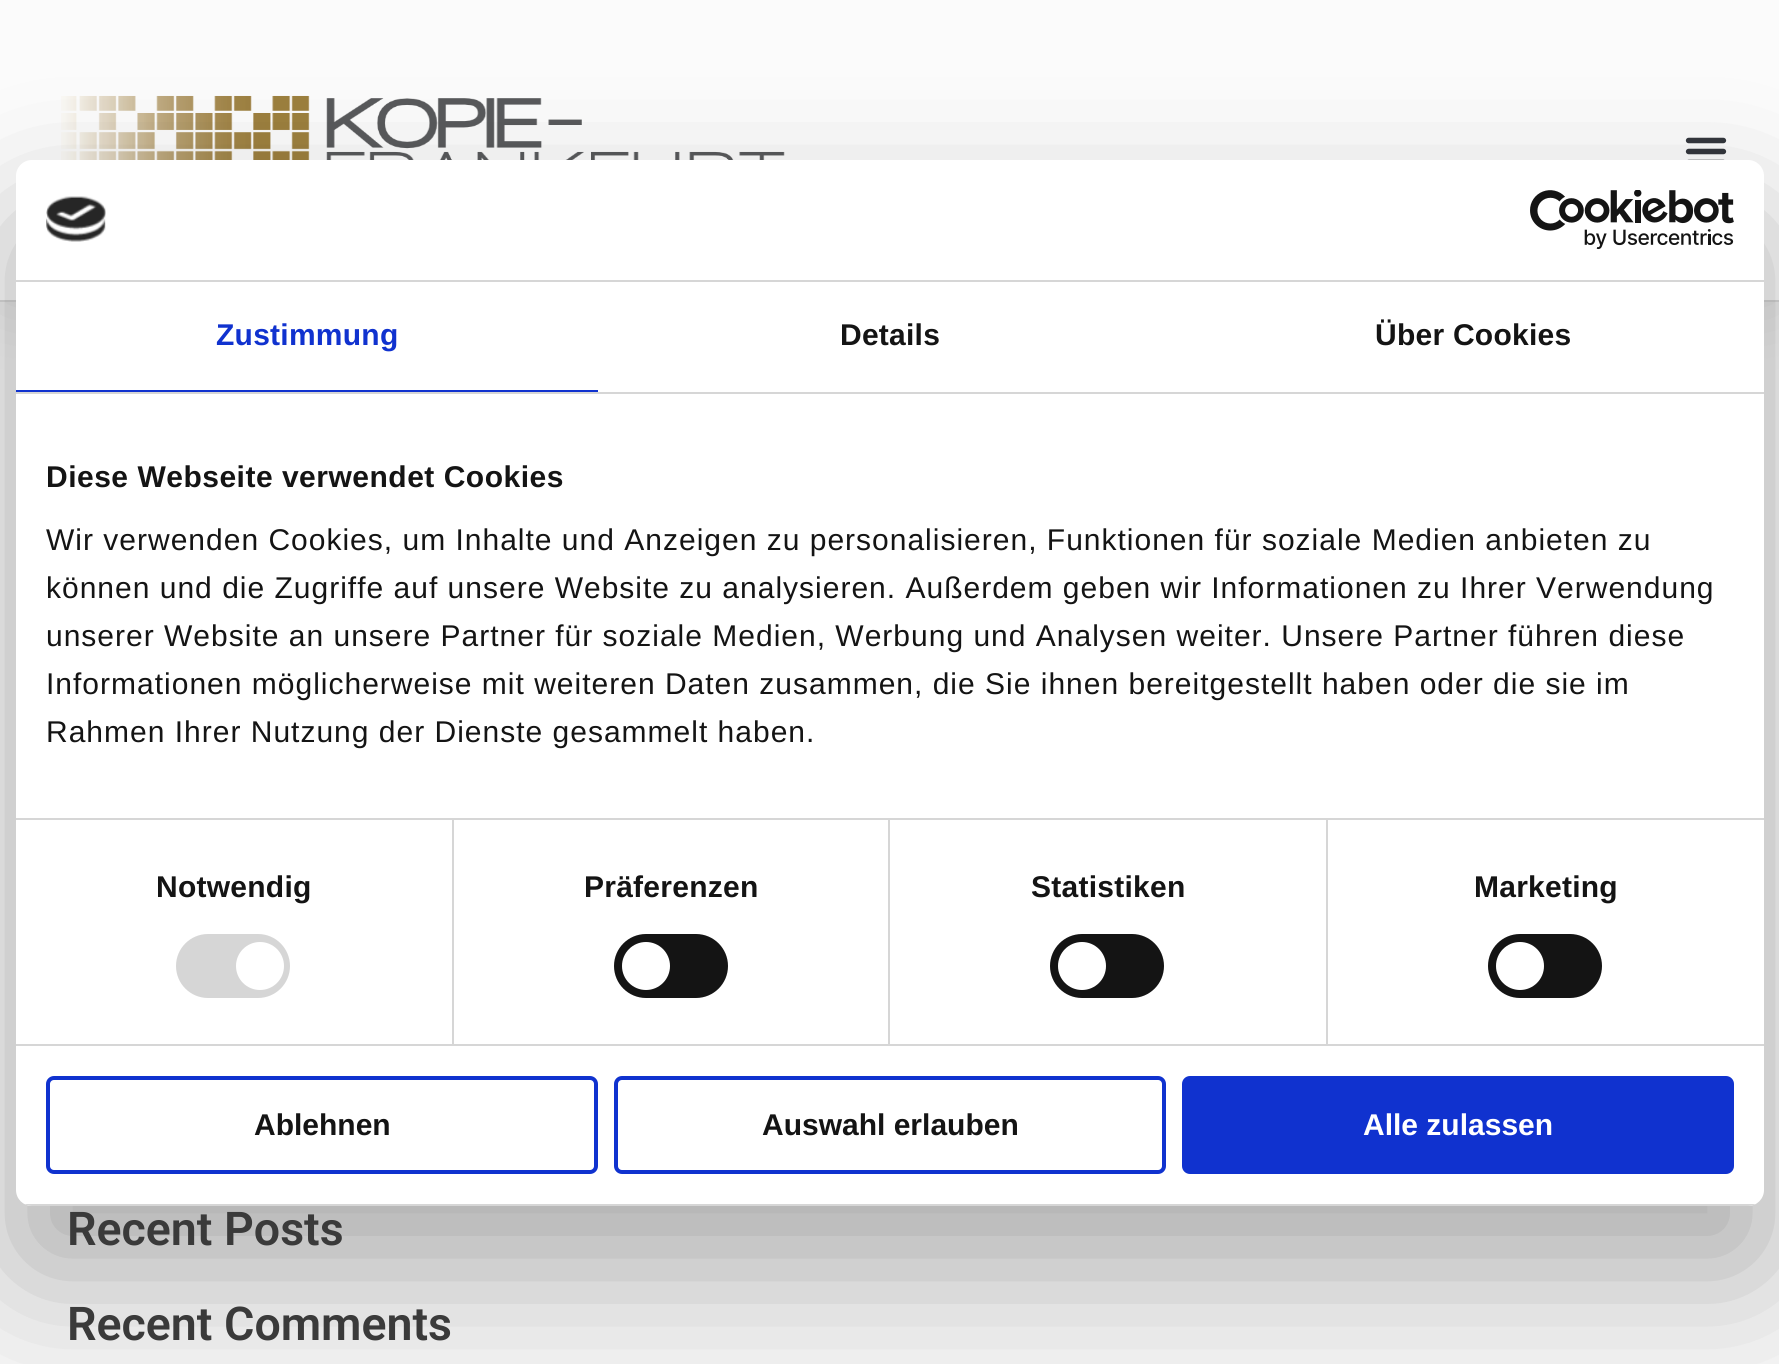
#include <cairo/cairo.h>
#include <math.h>
#include <stddef.h>

typedef struct { double x, y; const char *s; } line_t;
typedef struct { double x, y, w, h; unsigned color; } box_t;
static cairo_t *cr;

static void rgb(unsigned color)
{
	cairo_set_source_rgb(cr, (color >> 16) / 255.0, (color >> 8 & 255) / 255.0, (color & 255) / 255.0);
}

static void tracked(double x, double y, const char *s, double letter, double word)
{
	cairo_move_to(cr, x, y);
	while (*s) {
		char ch[5] = {0};
		int n = 0;
		do ch[n++] = *s++; while ((*s & 0xC0) == 0x80);
		cairo_show_text(cr, ch);
		cairo_rel_move_to(cr, letter + word * (*ch == ' '), 0);
	}
}

static void rrect(double x, double y, double w, double h, double r)
{
	cairo_new_sub_path(cr);
	cairo_arc(cr, x + w - r, y + h - r, r, 0, M_PI / 2);
	cairo_arc(cr, x + r, y + h - r, r, M_PI / 2, M_PI);
	cairo_arc(cr, x + r, y + r, r, M_PI, 1.5 * M_PI);
	cairo_arc(cr, x + w - r, y + r, r, 1.5 * M_PI, 2 * M_PI);
	cairo_close_path(cr);
}

static void soft_shadow(double x, double y, double w, double h, double r, double blur, double alpha)
{
	cairo_push_group_with_content(cr, CAIRO_CONTENT_ALPHA);
	cairo_set_operator(cr, CAIRO_OPERATOR_SOURCE);
	for (int i = 15; i >= -15 && fmin(w, h) + blur * i / 3 > 0; i -= 2) {
		double e = blur * i / 6;
		cairo_set_source_rgba(cr, 0, 0, 0, alpha * erfc((i - 1) / 8.5) / 2);
		rrect(x - e, y - e, w + 2 * e, h + 2 * e, fmax(0, fmin(r + e + blur * .6, fmin(w, h) / 2 + e)));
		cairo_fill(cr);
	}
	cairo_pattern_t *soft = cairo_pop_group(cr);
	cairo_mask(cr, soft);
	cairo_pattern_destroy(soft);
}

static void image(const char *path, double x, double y, double w, double h)
{
	cairo_surface_t *image = cairo_image_surface_create_from_png(path);
	cairo_save(cr);
	cairo_set_source_surface(cr, image, x, y);
	cairo_rectangle(cr, x, y, w, h);
	cairo_fill(cr);
	cairo_restore(cr);
	cairo_surface_destroy(image);
}

int main(void) {
	cairo_surface_t *surface = cairo_image_surface_create(CAIRO_FORMAT_RGB24, 1779, 1364);
	cr = cairo_create(surface);
	cairo_font_options_t *options = cairo_font_options_create();
	cairo_font_options_set_hint_metrics(options, CAIRO_HINT_METRICS_OFF);
	cairo_font_options_set_hint_style(options, CAIRO_HINT_STYLE_NONE);
	cairo_set_font_options(cr, options);
	cairo_set_miter_limit(cr, 4);
	rgb(0xf5f5f5);
	cairo_paint(cr);
	rgb(0x000000);
	soft_shadow(0, 0, 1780, 302, 0, 38, 0.1);
	rgb(0xfbfbfb);
	cairo_rectangle(cr, 0, 0, 1779, 300);
	cairo_fill(cr);
	rgb(0xd8d8d8);
	cairo_rectangle(cr, 0, 300, 1779, 2);
	cairo_fill(cr);
	image("img/3.png", 61, 95, 724, 65);
	image("img/4.png", 1685, 137, 42, 23);
	rgb(0x000000);
	soft_shadow(16, 224, 1748, 1046, 16, 68, 0.3);
	rgb(0xffffff);
	rrect(16, 160, 1748, 1046, 16);
	cairo_fill(cr);
	rgb(0xd6d6d6);
	cairo_rectangle(cr, 16, 280, 1748, 2);
	cairo_fill(cr);
	image("img/1.png", 46, 196, 60, 46);
	image("img/2.png", 1530, 190, 204, 60);
	{
		static const box_t items[] = {
			{16, 392, 1748, 2, 0xd6d6d6},
			{16, 390, 582, 2, 0x1032cf},
			{16, 818, 1748, 2, 0xd6d6d6},
			{16, 1044, 1748, 2, 0xd6d6d6},
			{452, 820, 2, 224, 0xd6d6d6},
		};
		for (size_t i = 0; i < sizeof items / sizeof *items; i++) {
			rgb(items[i].color);
			cairo_rectangle(cr, items[i].x, items[i].y, items[i].w, items[i].h);
			cairo_fill(cr);
		}
	}
	rrect(176, 934, 114, 64, 32);
	cairo_fill(cr);
	rgb(0xffffff);
	cairo_arc(cr, 260, 966, 24, 0, 2 * M_PI);
	cairo_fill(cr);
	rgb(0xd6d6d6);
	cairo_rectangle(cr, 888, 820, 2, 224);
	cairo_fill(cr);
	rgb(0x141414);
	rrect(614, 934, 114, 64, 32);
	cairo_fill(cr);
	rgb(0xffffff);
	cairo_arc(cr, 646, 966, 24, 0, 2 * M_PI);
	cairo_fill(cr);
	rgb(0xd6d6d6);
	cairo_rectangle(cr, 1326, 820, 2, 224);
	cairo_fill(cr);
	rgb(0x141414);
	rrect(1050, 934, 114, 64, 32);
	cairo_fill(cr);
	rgb(0xffffff);
	cairo_arc(cr, 1082, 966, 24, 0, 2 * M_PI);
	cairo_fill(cr);
	rgb(0x141414);
	rrect(1488, 934, 114, 64, 32);
	cairo_fill(cr);
	rgb(0xffffff);
	cairo_arc(cr, 1520, 966, 24, 0, 2 * M_PI);
	cairo_fill(cr);
	cairo_save(cr);
	rrect(16, 160, 1748, 1046, 16);
	cairo_clip(cr);
	rgb(0xd6d6d6);
	cairo_rectangle(cr, 16, 1204, 1748, 2);
	cairo_fill(cr);
	cairo_restore(cr);
	rrect(48, 1078, 548, 94, 6);
	rgb(0x1032cf);
	cairo_set_line_width(cr, 4);
	cairo_stroke(cr);
	rrect(616, 1078, 548, 94, 6);
	cairo_stroke(cr);
	rrect(1184, 1078, 548, 94, 6);
	cairo_fill_preserve(cr);
	cairo_stroke(cr);
	cairo_select_font_face(cr, "Liberation Sans", CAIRO_FONT_SLANT_NORMAL, CAIRO_FONT_WEIGHT_BOLD);
	cairo_set_font_size(cr, 30);
	tracked(216, 345, "Zustimmung", 0.25, 0);
	rgb(0x141414);
	tracked(840, 345, "Details", 0.25, 0);
	tracked(1375, 345, "Über Cookies", 0.25, 0);
	tracked(46, 487, "Diese Webseite verwendet Cookies", 0.5, 0);
	cairo_select_font_face(cr, "Liberation Sans", CAIRO_FONT_SLANT_NORMAL, CAIRO_FONT_WEIGHT_NORMAL);
	{
		static const line_t items[] = {
			{46, 550, "Wir verwenden Cookies, um Inhalte und Anzeigen zu personalisieren, Funktionen für soziale Medien anbieten zu"},
			{46, 598, "können und die Zugriffe auf unsere Website zu analysieren. Außerdem geben wir Informationen zu Ihrer Verwendung"},
			{46, 646, "unserer Website an unsere Partner für soziale Medien, Werbung und Analysen weiter. Unsere Partner führen diese"},
			{46, 694, "Informationen möglicherweise mit weiteren Daten zusammen, die Sie ihnen bereitgestellt haben oder die sie im"},
			{46, 742, "Rahmen Ihrer Nutzung der Dienste gesammelt haben."},
		};
		for (size_t i = 0; i < sizeof items / sizeof *items; i++) {
			tracked(items[i].x, items[i].y, items[i].s, 1, 0);
		}
	}
	cairo_select_font_face(cr, "Liberation Sans", CAIRO_FONT_SLANT_NORMAL, CAIRO_FONT_WEIGHT_BOLD);
	{
		static const line_t items[] = {
			{156, 897, "Notwendig"},
			{584, 897, "Präferenzen"},
			{1031, 897, "Statistiken"},
			{1474, 897, "Marketing"},
		};
		for (size_t i = 0; i < sizeof items / sizeof *items; i++) {
			tracked(items[i].x, items[i].y, items[i].s, 0.25, 0);
		}
	}
	cairo_move_to(cr, 254, 1135);
	cairo_show_text(cr, "Ablehnen");
	cairo_move_to(cr, 762, 1135);
	cairo_show_text(cr, "Auswahl erlauben");
	rgb(0xffffff);
	cairo_move_to(cr, 1363, 1135);
	cairo_show_text(cr, "Alle zulassen");
	cairo_select_font_face(cr, "Roboto SemiBold", CAIRO_FONT_SLANT_NORMAL, CAIRO_FONT_WEIGHT_NORMAL);
	cairo_set_font_size(cr, 46.5);
	rgb(0x3a3a3a);
	cairo_move_to(cr, 67, 1245);
	cairo_show_text(cr, "Recent Posts");
	cairo_move_to(cr, 67, 1340);
	cairo_show_text(cr, "Recent Comments");
	cairo_surface_write_to_png(surface, "page.png");
	cairo_font_options_destroy(options);
	cairo_destroy(cr);
	cairo_surface_destroy(surface);
	return 0;
}
